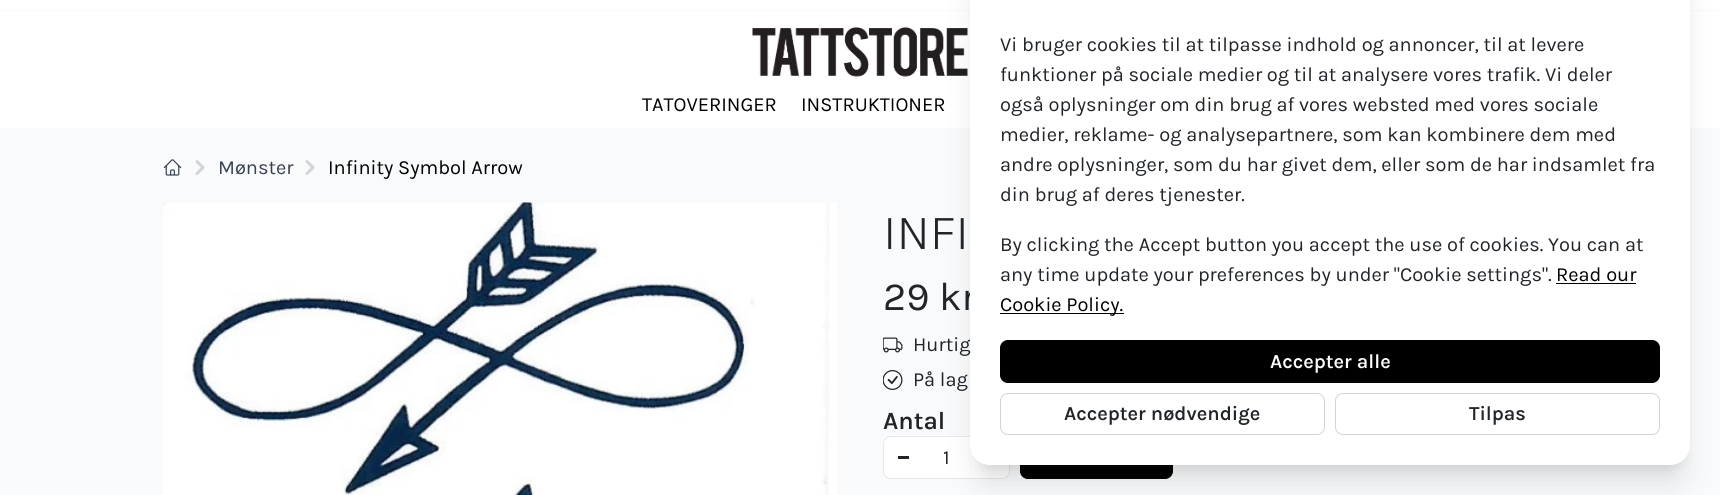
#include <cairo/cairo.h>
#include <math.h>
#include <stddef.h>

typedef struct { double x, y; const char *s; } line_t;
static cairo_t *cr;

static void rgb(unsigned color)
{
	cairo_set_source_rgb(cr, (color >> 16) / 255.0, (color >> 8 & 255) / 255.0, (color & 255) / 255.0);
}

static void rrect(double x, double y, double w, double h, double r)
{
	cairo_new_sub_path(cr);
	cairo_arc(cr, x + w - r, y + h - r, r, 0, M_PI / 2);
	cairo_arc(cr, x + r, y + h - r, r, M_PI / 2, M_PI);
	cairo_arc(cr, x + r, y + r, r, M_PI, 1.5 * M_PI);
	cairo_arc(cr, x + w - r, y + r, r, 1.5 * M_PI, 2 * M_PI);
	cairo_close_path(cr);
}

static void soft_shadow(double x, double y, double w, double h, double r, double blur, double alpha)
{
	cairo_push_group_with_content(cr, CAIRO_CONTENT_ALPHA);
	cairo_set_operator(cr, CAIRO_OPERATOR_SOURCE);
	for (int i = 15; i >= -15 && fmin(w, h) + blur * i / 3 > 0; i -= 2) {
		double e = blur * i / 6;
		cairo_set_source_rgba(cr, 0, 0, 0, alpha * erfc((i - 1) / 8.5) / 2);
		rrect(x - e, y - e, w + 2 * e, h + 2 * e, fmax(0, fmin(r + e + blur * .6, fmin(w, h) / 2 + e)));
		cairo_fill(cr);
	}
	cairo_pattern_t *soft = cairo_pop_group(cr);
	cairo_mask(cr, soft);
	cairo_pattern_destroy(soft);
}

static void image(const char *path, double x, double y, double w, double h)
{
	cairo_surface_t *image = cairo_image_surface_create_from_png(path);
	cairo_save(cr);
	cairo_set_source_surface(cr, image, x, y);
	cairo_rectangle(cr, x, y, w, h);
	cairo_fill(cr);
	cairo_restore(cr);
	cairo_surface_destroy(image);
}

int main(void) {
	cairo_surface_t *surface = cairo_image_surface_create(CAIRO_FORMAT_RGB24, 1720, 495);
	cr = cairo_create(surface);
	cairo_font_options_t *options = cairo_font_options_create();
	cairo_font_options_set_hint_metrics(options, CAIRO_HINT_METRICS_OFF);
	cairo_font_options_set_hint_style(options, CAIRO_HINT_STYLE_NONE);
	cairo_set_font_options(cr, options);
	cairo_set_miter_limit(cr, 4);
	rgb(0xf9fafb);
	cairo_paint(cr);
	rgb(0xffffff);
	cairo_rectangle(cr, 0, 0, 1720, 128);
	cairo_fill(cr);
	rgb(0xf9fafb);
	cairo_rectangle(cr, 0, 10, 1720, 1);
	cairo_fill(cr);
	image("img/1.png", 752, 27, 216, 50);
	rgb(0xffffff);
	rrect(883.5, 436.5, 126, 42, 7.5);
	cairo_fill_preserve(cr);
	rgb(0xe5e7eb);
	cairo_set_line_width(cr, 1);
	cairo_stroke(cr);
	rgb(0x000000);
	rrect(1020.5, 436.5, 152, 42, 7.5);
	cairo_fill_preserve(cr);
	cairo_stroke(cr);
	rgb(0x000000);
	soft_shadow(978, -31, 705, 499, 13, 6, 0.1);
	soft_shadow(976, -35, 708, 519, 14, 15.5, 0.1);
	image("img/2.png", 163, 159, 19, 17);
	cairo_new_path(cr);
	cairo_move_to(cr, 197, 173.5);
	cairo_line_to(cr, 203, 167.5);
	cairo_line_to(cr, 197, 161.5);
	rgb(0xd1d5db);
	cairo_set_line_width(cr, 3);
	cairo_set_line_cap(cr, CAIRO_LINE_CAP_ROUND);
	cairo_set_line_join(cr, CAIRO_LINE_JOIN_ROUND);
	cairo_stroke(cr);
	cairo_new_path(cr);
	cairo_move_to(cr, 307, 173.5);
	cairo_line_to(cr, 313, 167.5);
	cairo_line_to(cr, 307, 161.5);
	cairo_stroke(cr);
	image("img/3.png", 163, 202, 674, 293);
	image("img/4.png", 883, 337, 20, 16);
	image("img/5.png", 883, 370, 20, 20);
	rgb(0x212529);
	cairo_rectangle(cr, 898, 456, 11, 3);
	cairo_fill(cr);
	cairo_select_font_face(cr, "Karla", CAIRO_FONT_SLANT_NORMAL, CAIRO_FONT_WEIGHT_NORMAL);
	cairo_set_font_size(cr, 20);
	rgb(0x000000);
	cairo_move_to(cr, 642, 111);
	cairo_show_text(cr, "TATOVERINGER");
	cairo_move_to(cr, 801, 111);
	cairo_show_text(cr, "INSTRUKTIONER");
	rgb(0x374151);
	cairo_move_to(cr, 218, 174);
	cairo_show_text(cr, "Mønster");
	rgb(0x000000);
	cairo_move_to(cr, 328, 174);
	cairo_show_text(cr, "Infinity Symbol Arrow");
	cairo_select_font_face(cr, "Karla Light", CAIRO_FONT_SLANT_NORMAL, CAIRO_FONT_WEIGHT_NORMAL);
	cairo_set_font_size(cr, 50);
	rgb(0x212529);
	cairo_move_to(cr, 883, 249);
	cairo_show_text(cr, "INFI");
	cairo_select_font_face(cr, "Karla", CAIRO_FONT_SLANT_NORMAL, CAIRO_FONT_WEIGHT_NORMAL);
	cairo_set_font_size(cr, 40);
	cairo_move_to(cr, 883, 310);
	cairo_show_text(cr, "29 kr");
	rgb(0xffffff);
	rrect(970, -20, 720, 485, 20);
	cairo_fill(cr);
	rrect(1335.5, 393.5, 324, 41, 7.5);
	rgb(0xd1d5db);
	cairo_set_line_width(cr, 1);
	cairo_set_line_cap(cr, CAIRO_LINE_CAP_BUTT);
	cairo_set_line_join(cr, CAIRO_LINE_JOIN_MITER);
	cairo_stroke(cr);
	cairo_select_font_face(cr, "Karla SemiBold", CAIRO_FONT_SLANT_NORMAL, CAIRO_FONT_WEIGHT_NORMAL);
	cairo_set_font_size(cr, 20);
	rgb(0x212529);
	cairo_move_to(cr, 1469, 420);
	cairo_show_text(cr, "Tilpas");
	rrect(1000.5, 393.5, 324, 41, 7.5);
	rgb(0xd1d5db);
	cairo_stroke(cr);
	rgb(0x212529);
	cairo_move_to(cr, 1064, 420);
	cairo_show_text(cr, "Accepter nødvendige");
	rgb(0x000000);
	rrect(1000.5, 340.5, 659, 42, 7.5);
	cairo_fill_preserve(cr);
	cairo_stroke(cr);
	rgb(0xffffff);
	cairo_move_to(cr, 1270, 368);
	cairo_show_text(cr, "Accepter alle");
	rgb(0x000000);
	cairo_rectangle(cr, 1000, 313, 124, 1);
	cairo_fill(cr);
	cairo_select_font_face(cr, "Karla", CAIRO_FONT_SLANT_NORMAL, CAIRO_FONT_WEIGHT_NORMAL);
	cairo_move_to(cr, 1000, 311);
	cairo_show_text(cr, "Cookie Policy.");
	cairo_move_to(cr, 1556, 281);
	cairo_show_text(cr, "Read our");
	cairo_rectangle(cr, 1556, 283, 80, 1);
	cairo_fill(cr);
	rgb(0x212529);
	{
		static const line_t items[] = {
			{1000, 281, "any time update your preferences by under \"Cookie settings\"."},
			{1000, 251, "By clicking the Accept button you accept the use of cookies. You can at"},
			{1000, 201, "din brug af deres tjenester."},
			{1000, 171, "andre oplysninger, som du har givet dem, eller som de har indsamlet fra"},
			{1000, 141, "medier, reklame- og analysepartnere, som kan kombinere dem med"},
			{1000, 111, "også oplysninger om din brug af vores websted med vores sociale"},
			{1000, 81, "funktioner på sociale medier og til at analysere vores trafik. Vi deler"},
			{1000, 51, "Vi bruger cookies til at tilpasse indhold og annoncer, til at levere"},
			{913, 351, "Hurtig"},
			{913, 386, "På lag"},
		};
		for (size_t i = 0; i < sizeof items / sizeof *items; i++) {
			cairo_move_to(cr, items[i].x, items[i].y);
			cairo_show_text(cr, items[i].s);
		}
	}
	cairo_select_font_face(cr, "Karla SemiBold", CAIRO_FONT_SLANT_NORMAL, CAIRO_FONT_WEIGHT_NORMAL);
	cairo_set_font_size(cr, 25);
	cairo_move_to(cr, 883, 429);
	cairo_show_text(cr, "Antal");
	cairo_select_font_face(cr, "Karla", CAIRO_FONT_SLANT_NORMAL, CAIRO_FONT_WEIGHT_NORMAL);
	cairo_set_font_size(cr, 20);
	cairo_move_to(cr, 943, 464);
	cairo_show_text(cr, "1");
	cairo_surface_write_to_png(surface, "page.png");
	cairo_font_options_destroy(options);
	cairo_destroy(cr);
	cairo_surface_destroy(surface);
	return 0;
}
